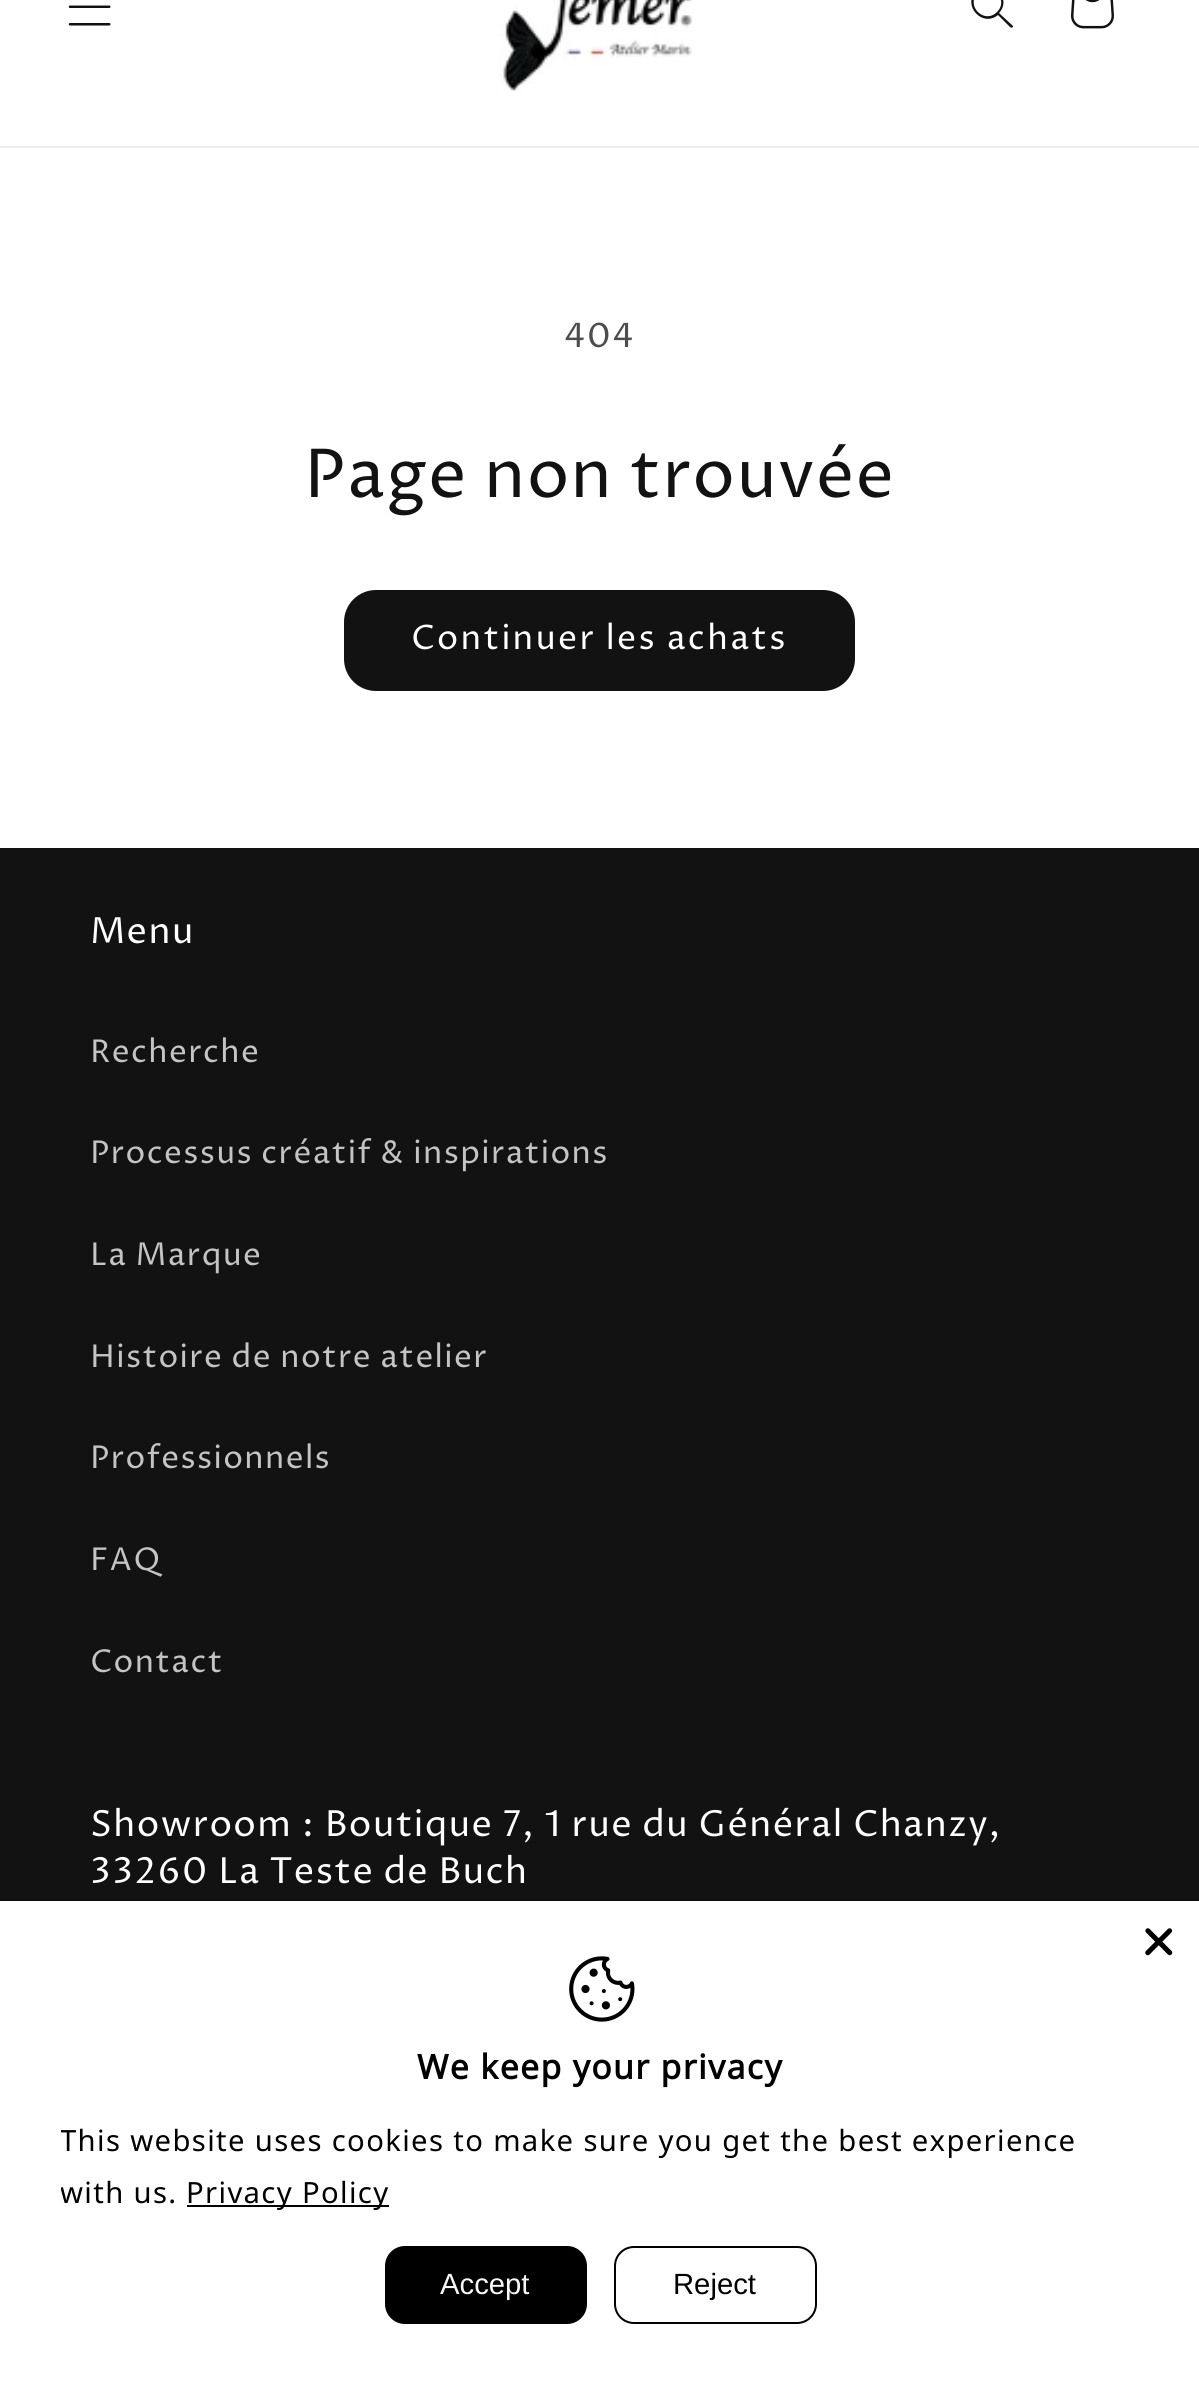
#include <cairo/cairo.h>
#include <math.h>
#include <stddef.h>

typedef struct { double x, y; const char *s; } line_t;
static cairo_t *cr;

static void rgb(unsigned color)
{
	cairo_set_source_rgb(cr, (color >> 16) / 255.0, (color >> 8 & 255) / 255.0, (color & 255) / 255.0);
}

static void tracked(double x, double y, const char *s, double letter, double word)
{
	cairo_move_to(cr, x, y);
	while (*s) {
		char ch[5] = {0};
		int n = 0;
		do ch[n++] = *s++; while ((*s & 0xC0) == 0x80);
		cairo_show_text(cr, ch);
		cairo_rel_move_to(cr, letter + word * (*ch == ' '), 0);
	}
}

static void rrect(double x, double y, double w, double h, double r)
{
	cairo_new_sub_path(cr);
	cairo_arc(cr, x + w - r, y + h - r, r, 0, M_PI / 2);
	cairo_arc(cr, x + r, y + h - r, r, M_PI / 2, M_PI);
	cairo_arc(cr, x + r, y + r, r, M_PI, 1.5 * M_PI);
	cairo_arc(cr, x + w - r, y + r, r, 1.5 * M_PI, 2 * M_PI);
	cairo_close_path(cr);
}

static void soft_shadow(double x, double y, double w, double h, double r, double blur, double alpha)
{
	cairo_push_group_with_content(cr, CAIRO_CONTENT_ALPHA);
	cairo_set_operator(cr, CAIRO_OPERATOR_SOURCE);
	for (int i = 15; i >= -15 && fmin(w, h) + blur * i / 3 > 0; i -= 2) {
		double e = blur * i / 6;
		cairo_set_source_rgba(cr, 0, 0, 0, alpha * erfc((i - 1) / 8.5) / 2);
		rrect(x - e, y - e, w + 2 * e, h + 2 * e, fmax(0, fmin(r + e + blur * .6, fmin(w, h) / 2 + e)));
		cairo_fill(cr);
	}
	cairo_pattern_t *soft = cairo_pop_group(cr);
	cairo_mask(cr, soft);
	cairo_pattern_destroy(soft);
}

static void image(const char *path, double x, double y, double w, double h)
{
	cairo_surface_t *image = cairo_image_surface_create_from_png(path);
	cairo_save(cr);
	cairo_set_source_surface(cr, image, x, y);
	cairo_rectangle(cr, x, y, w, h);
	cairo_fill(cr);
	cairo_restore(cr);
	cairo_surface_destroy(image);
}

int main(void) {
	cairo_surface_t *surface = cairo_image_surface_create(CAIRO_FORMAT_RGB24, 1199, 2384);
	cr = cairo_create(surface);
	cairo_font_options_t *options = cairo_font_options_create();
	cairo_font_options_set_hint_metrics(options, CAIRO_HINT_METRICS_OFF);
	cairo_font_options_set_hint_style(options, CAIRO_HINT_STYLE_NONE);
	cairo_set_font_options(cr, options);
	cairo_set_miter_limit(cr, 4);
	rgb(0xffffff);
	cairo_paint(cr);
	rgb(0xececec);
	cairo_rectangle(cr, 0, 146, 1199, 2);
	cairo_fill(cr);
	image("img/1.png", 68, 5, 43, 21);
	image("img/2.png", 499, 0, 194, 94);
	rgb(0x121212);
	cairo_set_fill_rule(cr, CAIRO_FILL_RULE_EVEN_ODD);
	cairo_new_path(cr);
	cairo_move_to(cr, 997, 12);
	cairo_curve_to(cr, 984, 25, 965, 5, 978, -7);
	cairo_curve_to(cr, 990, -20, 1010, -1, 997, 12);
	cairo_move_to(cr, 998, 15);
	cairo_curve_to(cr, 982, 28, 962, 5, 976, -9);
	cairo_curve_to(cr, 991, -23, 1013, -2, 999, 13);
	cairo_line_to(cr, 1013, 26);
	cairo_curve_to(cr, 1013, 28, 1011, 28, 1010, 27);
	cairo_close_path(cr);
	cairo_fill(cr);
	image("img/3.png", 1071, 0, 43, 29);
	rrect(344, 590, 511, 101, 32);
	cairo_fill(cr);
	cairo_rectangle(cr, 0, 848, 1199, 1053);
	cairo_fill(cr);
	rgb(0x000000);
	soft_shadow(0, 1901, 1199, 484, 0, 2, 0.5);
	rgb(0xffffff);
	cairo_rectangle(cr, 0, 1901, 1199, 483);
	cairo_fill(cr);
	image("img/4.png", 1145, 1928, 28, 28);
	image("img/5.png", 569, 1956, 66, 66);
	rgb(0x000000);
	cairo_rectangle(cr, 187, 2205, 202, 2);
	cairo_fill(cr);
	rrect(385, 2246, 202, 78, 20);
	cairo_fill(cr);
	rrect(615, 2247, 201, 76, 19);
	cairo_stroke(cr);
	cairo_select_font_face(cr, "Proza Libre", CAIRO_FONT_SLANT_NORMAL, CAIRO_FONT_WEIGHT_NORMAL);
	cairo_set_font_size(cr, 33.75);
	rgb(0x4d4d4d);
	tracked(564, 347, "404", 1.35, 0);
	cairo_set_font_size(cr, 67.5);
	rgb(0x121212);
	tracked(304, 497, "Page non trouvée", 1.35, 0);
	cairo_set_font_size(cr, 33.75);
	rgb(0xffffff);
	tracked(411, 649, "Continuer les achats", 2.25, 0);
	cairo_set_font_size(cr, 36);
	tracked(90, 943, "Menu", 1.35, 0);
	cairo_set_font_size(cr, 31.5);
	rgb(0xc4c4c4);
	{
		static const line_t items[] = {
			{90, 1062, "Recherche"},
			{90, 1163, "Processus créatif & inspirations"},
			{90, 1265, "La Marque"},
			{90, 1367, "Histoire de notre atelier"},
			{90, 1468, "Professionnels"},
			{90, 1570, "FAQ"},
			{90, 1672, "Contact"},
		};
		for (size_t i = 0; i < sizeof items / sizeof *items; i++) {
			tracked(items[i].x, items[i].y, items[i].s, 1.35, 0);
		}
	}
	cairo_set_font_size(cr, 36);
	rgb(0xffffff);
	tracked(90, 1836, "Showroom : Boutique 7, 1 rue du Général Chanzy,", 1.35, 0);
	tracked(90, 1883, "33260 La Teste de Buch", 1.35, 0);
	cairo_select_font_face(cr, "Noto Sans", CAIRO_FONT_SLANT_NORMAL, CAIRO_FONT_WEIGHT_BOLD);
	cairo_set_font_size(cr, 33.75);
	rgb(0x000000);
	tracked(417, 2079, "We keep your privacy", 1.35, 0);
	cairo_save(cr);
	cairo_set_fill_rule(cr, CAIRO_FILL_RULE_WINDING);
	cairo_rectangle(cr, 61, 2115, 1078, 106);
	cairo_clip(cr);
	cairo_select_font_face(cr, "Noto Sans", CAIRO_FONT_SLANT_NORMAL, CAIRO_FONT_WEIGHT_NORMAL);
	cairo_set_font_size(cr, 29.25);
	tracked(60, 2151, "This website uses cookies to make sure you get the best experience", 1.35, 0);
	tracked(60, 2203, "with us.", 1.35, 0);
	cairo_restore(cr);
	cairo_select_font_face(cr, "Noto Sans", CAIRO_FONT_SLANT_NORMAL, CAIRO_FONT_WEIGHT_NORMAL);
	cairo_set_font_size(cr, 29.25);
	tracked(186, 2203, "Privacy Policy", 1.35, 0);
	cairo_select_font_face(cr, "Liberation Sans", CAIRO_FONT_SLANT_NORMAL, CAIRO_FONT_WEIGHT_NORMAL);
	rgb(0xf8f8f8);
	cairo_move_to(cr, 440, 2294);
	cairo_show_text(cr, "Accept");
	rgb(0x000000);
	cairo_move_to(cr, 673, 2294);
	cairo_show_text(cr, "Reject");
	cairo_surface_write_to_png(surface, "page.png");
	cairo_font_options_destroy(options);
	cairo_destroy(cr);
	cairo_surface_destroy(surface);
	return 0;
}
